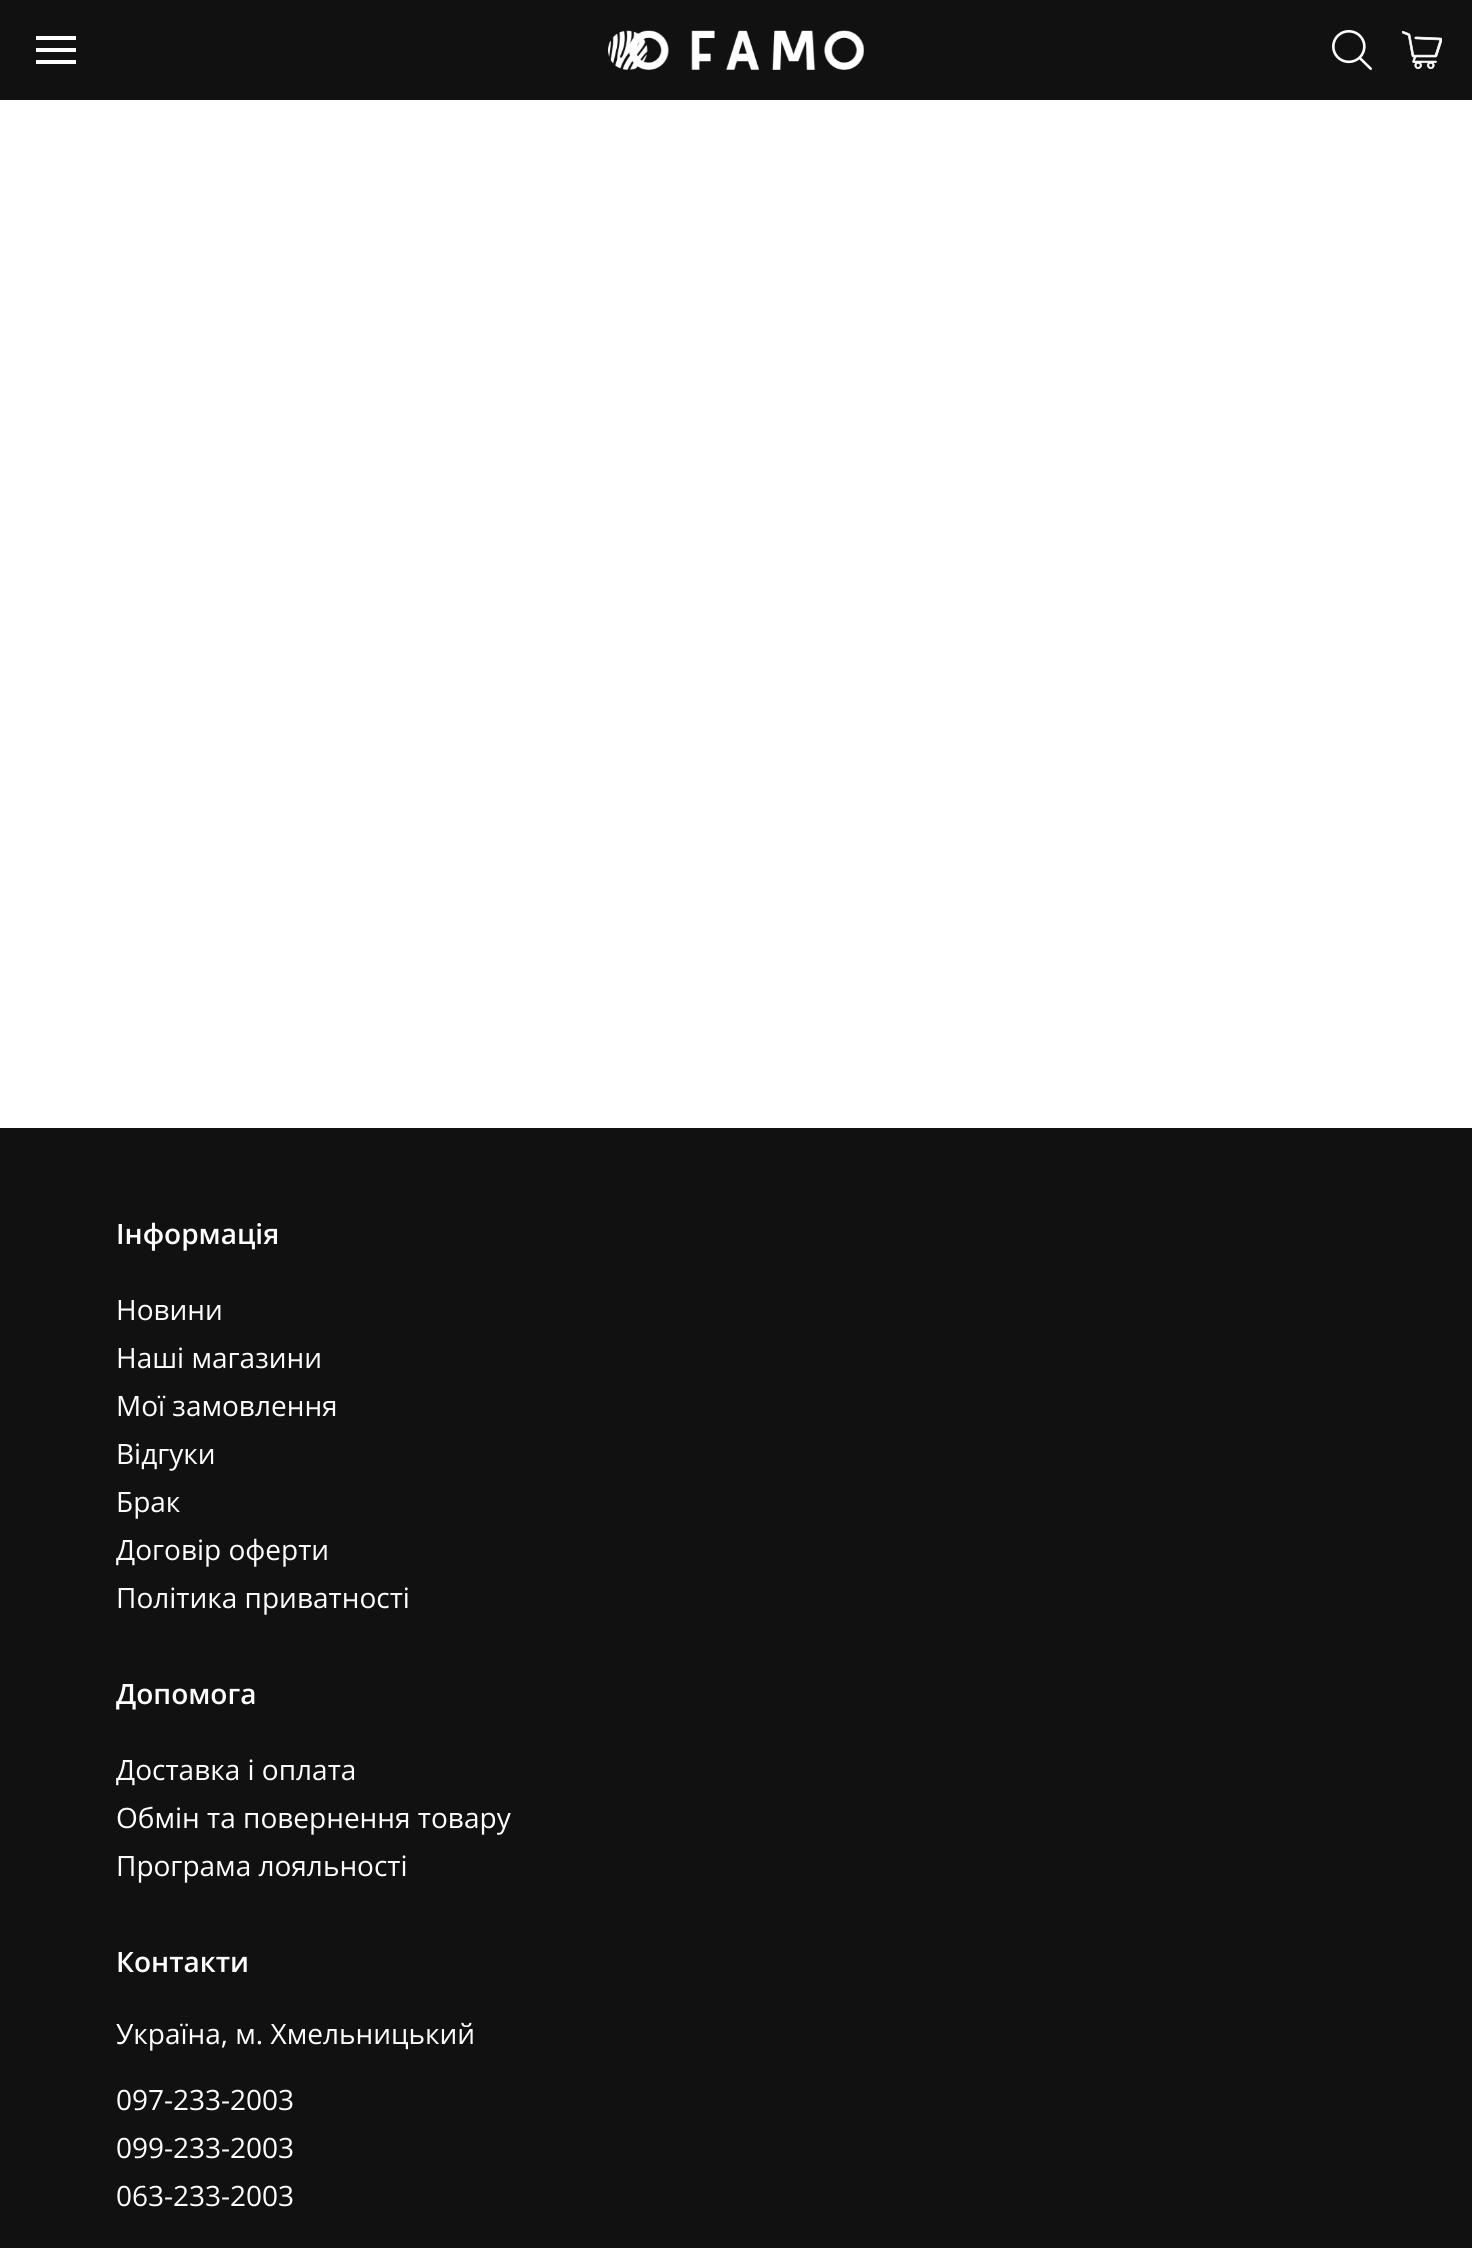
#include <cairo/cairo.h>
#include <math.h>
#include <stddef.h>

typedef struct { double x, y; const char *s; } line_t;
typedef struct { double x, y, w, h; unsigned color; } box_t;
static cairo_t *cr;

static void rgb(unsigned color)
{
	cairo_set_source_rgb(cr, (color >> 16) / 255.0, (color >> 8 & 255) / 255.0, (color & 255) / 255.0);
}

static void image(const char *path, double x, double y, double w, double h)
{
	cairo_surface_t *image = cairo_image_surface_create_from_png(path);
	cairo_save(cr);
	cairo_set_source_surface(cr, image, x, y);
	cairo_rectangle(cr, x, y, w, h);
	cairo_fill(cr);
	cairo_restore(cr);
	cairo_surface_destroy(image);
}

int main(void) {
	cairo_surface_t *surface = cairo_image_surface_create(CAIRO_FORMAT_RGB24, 1472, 2248);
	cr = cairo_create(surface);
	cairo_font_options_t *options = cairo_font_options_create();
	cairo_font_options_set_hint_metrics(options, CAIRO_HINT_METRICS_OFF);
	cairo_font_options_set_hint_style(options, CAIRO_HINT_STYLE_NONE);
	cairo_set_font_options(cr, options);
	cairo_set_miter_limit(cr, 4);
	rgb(0xffffff);
	cairo_paint(cr);
	{
		static const box_t items[] = {
			{0, 0, 1472, 100, 0x111111},
			{36, 48, 40, 4, 0xffffff},
			{36, 36, 40, 4, 0xffffff},
			{36, 60, 40, 4, 0xffffff},
		};
		for (size_t i = 0; i < sizeof items / sizeof *items; i++) {
			rgb(items[i].color);
			cairo_rectangle(cr, items[i].x, items[i].y, items[i].w, items[i].h);
			cairo_fill(cr);
		}
	}
	image("img/1.png", 608, 30, 256, 40);
	image("img/2.png", 1332, 30, 40, 40);
	image("img/3.png", 1402, 31, 40, 38);
	rgb(0x111111);
	cairo_rectangle(cr, 0, 1128, 1472, 1120);
	cairo_fill(cr);
	cairo_select_font_face(cr, "Open Sans SemiBold", CAIRO_FONT_SLANT_NORMAL, CAIRO_FONT_WEIGHT_NORMAL);
	cairo_set_font_size(cr, 28);
	rgb(0xffffff);
	cairo_move_to(cr, 116, 1244);
	cairo_show_text(cr, "Інформація");
	cairo_select_font_face(cr, "Open Sans", CAIRO_FONT_SLANT_NORMAL, CAIRO_FONT_WEIGHT_NORMAL);
	{
		static const line_t items[] = {
			{116, 1320, "Новини"},
			{116, 1368, "Наші магазини"},
			{116, 1416, "Мої замовлення"},
			{116, 1464, "Відгуки"},
			{116, 1512, "Брак"},
			{116, 1560, "Договір оферти"},
			{116, 1608, "Політика приватності"},
		};
		for (size_t i = 0; i < sizeof items / sizeof *items; i++) {
			cairo_move_to(cr, items[i].x, items[i].y);
			cairo_show_text(cr, items[i].s);
		}
	}
	cairo_select_font_face(cr, "Open Sans SemiBold", CAIRO_FONT_SLANT_NORMAL, CAIRO_FONT_WEIGHT_NORMAL);
	cairo_move_to(cr, 116, 1704);
	cairo_show_text(cr, "Допомога");
	cairo_select_font_face(cr, "Open Sans", CAIRO_FONT_SLANT_NORMAL, CAIRO_FONT_WEIGHT_NORMAL);
	{
		static const line_t items[] = {
			{116, 1780, "Доставка і оплата"},
			{116, 1828, "Обмін та повернення товару"},
			{116, 1876, "Програма лояльності"},
		};
		for (size_t i = 0; i < sizeof items / sizeof *items; i++) {
			cairo_move_to(cr, items[i].x, items[i].y);
			cairo_show_text(cr, items[i].s);
		}
	}
	cairo_select_font_face(cr, "Open Sans SemiBold", CAIRO_FONT_SLANT_NORMAL, CAIRO_FONT_WEIGHT_NORMAL);
	cairo_move_to(cr, 116, 1972);
	cairo_show_text(cr, "Контакти");
	cairo_select_font_face(cr, "Open Sans", CAIRO_FONT_SLANT_NORMAL, CAIRO_FONT_WEIGHT_NORMAL);
	{
		static const line_t items[] = {
			{116, 2044, "Україна, м. Хмельницький"},
			{116, 2110, "097-233-2003"},
			{116, 2158, "099-233-2003"},
			{116, 2206, "063-233-2003"},
		};
		for (size_t i = 0; i < sizeof items / sizeof *items; i++) {
			cairo_move_to(cr, items[i].x, items[i].y);
			cairo_show_text(cr, items[i].s);
		}
	}
	cairo_surface_write_to_png(surface, "page.png");
	cairo_font_options_destroy(options);
	cairo_destroy(cr);
	cairo_surface_destroy(surface);
	return 0;
}
